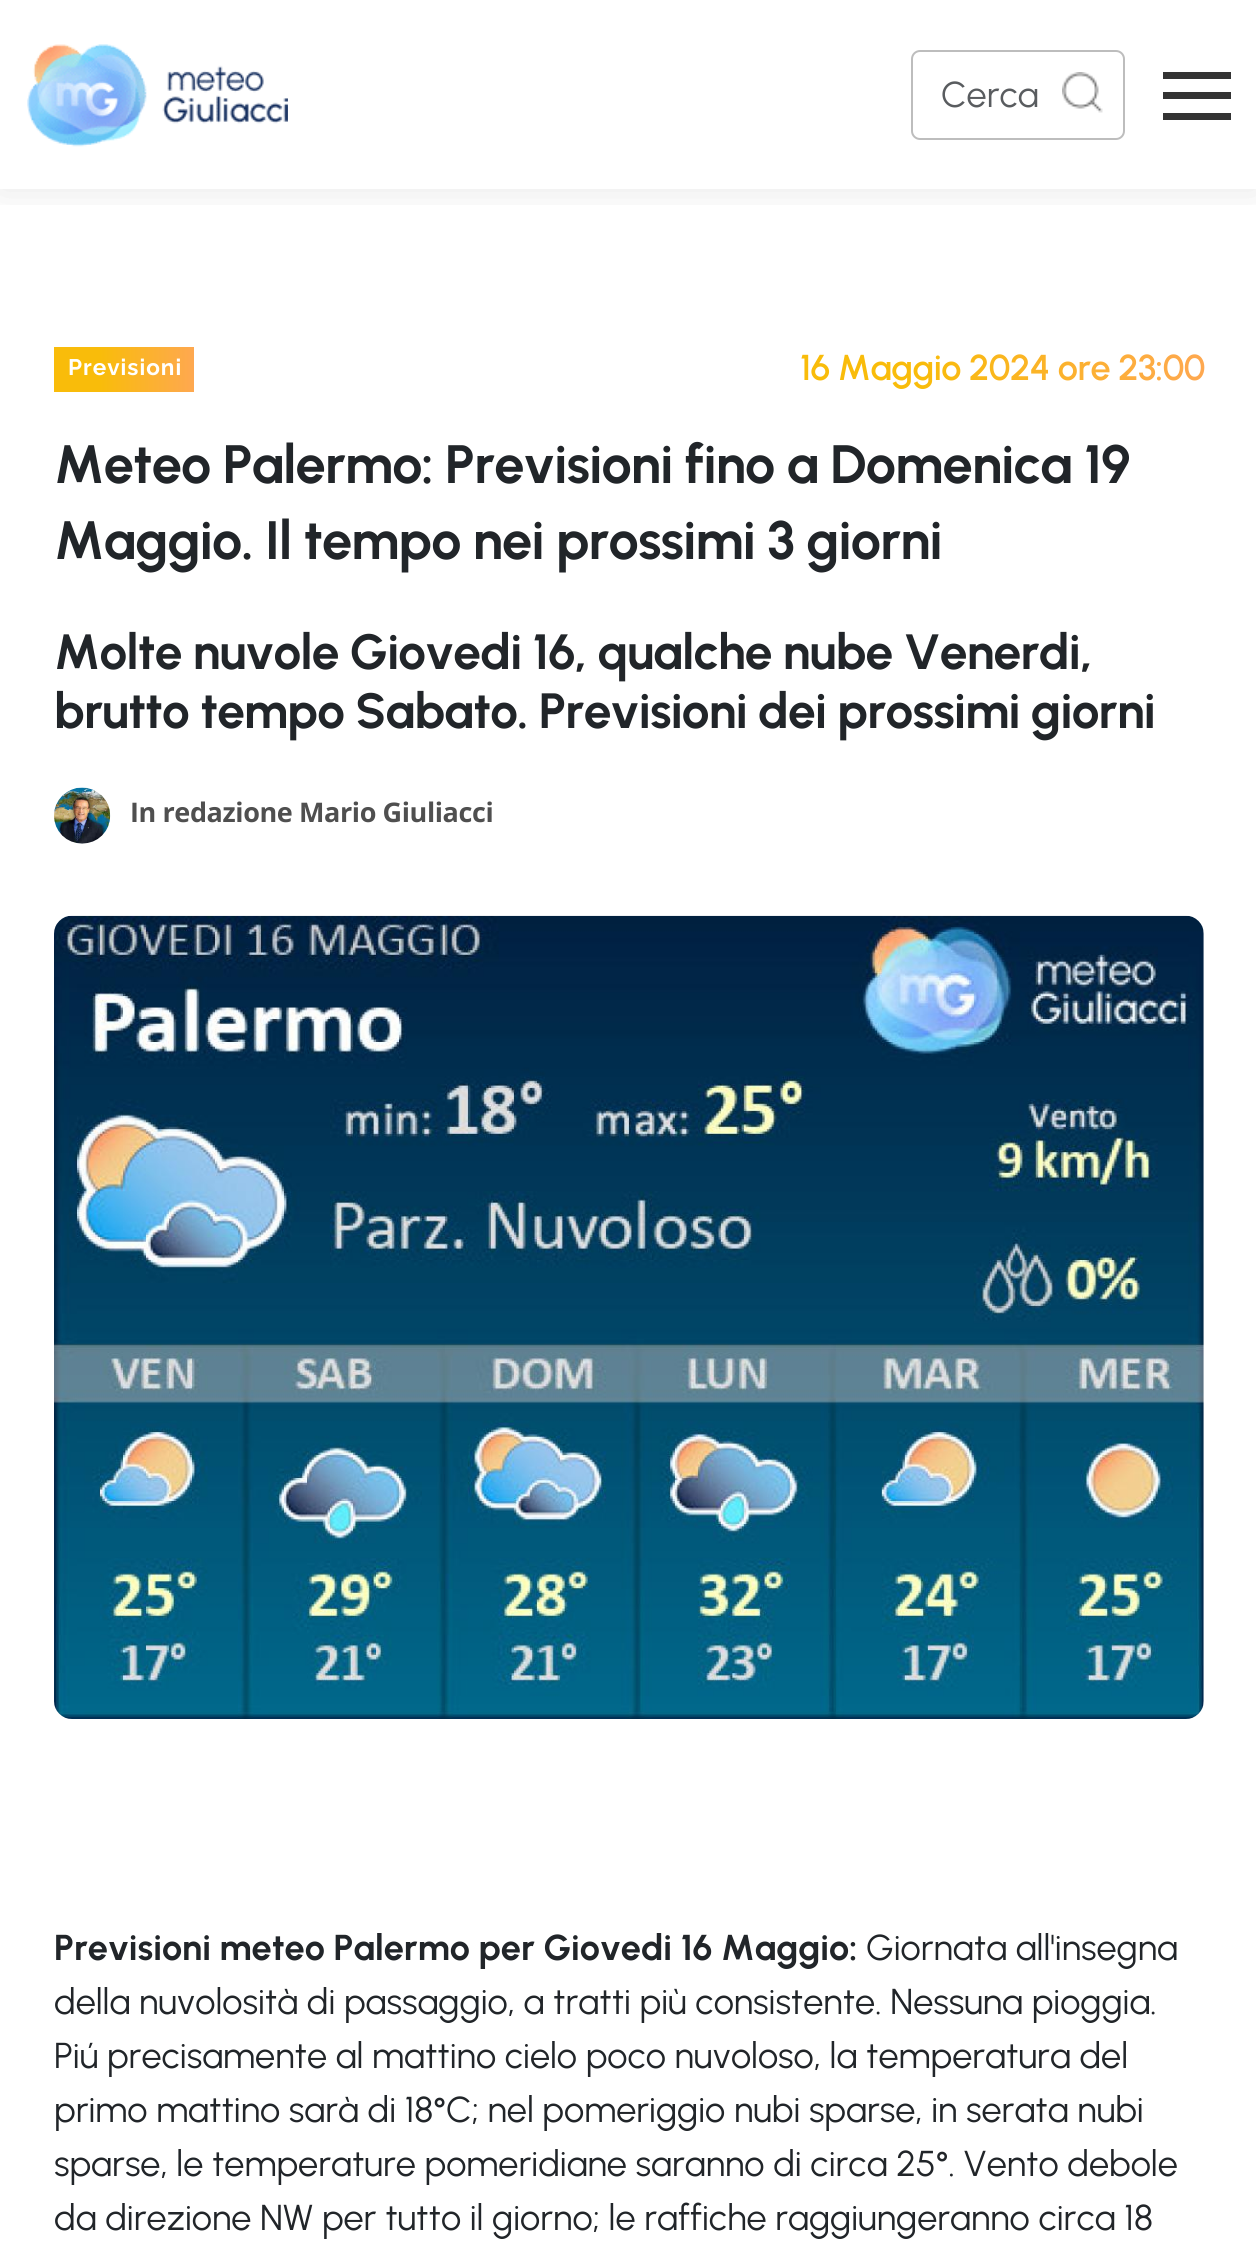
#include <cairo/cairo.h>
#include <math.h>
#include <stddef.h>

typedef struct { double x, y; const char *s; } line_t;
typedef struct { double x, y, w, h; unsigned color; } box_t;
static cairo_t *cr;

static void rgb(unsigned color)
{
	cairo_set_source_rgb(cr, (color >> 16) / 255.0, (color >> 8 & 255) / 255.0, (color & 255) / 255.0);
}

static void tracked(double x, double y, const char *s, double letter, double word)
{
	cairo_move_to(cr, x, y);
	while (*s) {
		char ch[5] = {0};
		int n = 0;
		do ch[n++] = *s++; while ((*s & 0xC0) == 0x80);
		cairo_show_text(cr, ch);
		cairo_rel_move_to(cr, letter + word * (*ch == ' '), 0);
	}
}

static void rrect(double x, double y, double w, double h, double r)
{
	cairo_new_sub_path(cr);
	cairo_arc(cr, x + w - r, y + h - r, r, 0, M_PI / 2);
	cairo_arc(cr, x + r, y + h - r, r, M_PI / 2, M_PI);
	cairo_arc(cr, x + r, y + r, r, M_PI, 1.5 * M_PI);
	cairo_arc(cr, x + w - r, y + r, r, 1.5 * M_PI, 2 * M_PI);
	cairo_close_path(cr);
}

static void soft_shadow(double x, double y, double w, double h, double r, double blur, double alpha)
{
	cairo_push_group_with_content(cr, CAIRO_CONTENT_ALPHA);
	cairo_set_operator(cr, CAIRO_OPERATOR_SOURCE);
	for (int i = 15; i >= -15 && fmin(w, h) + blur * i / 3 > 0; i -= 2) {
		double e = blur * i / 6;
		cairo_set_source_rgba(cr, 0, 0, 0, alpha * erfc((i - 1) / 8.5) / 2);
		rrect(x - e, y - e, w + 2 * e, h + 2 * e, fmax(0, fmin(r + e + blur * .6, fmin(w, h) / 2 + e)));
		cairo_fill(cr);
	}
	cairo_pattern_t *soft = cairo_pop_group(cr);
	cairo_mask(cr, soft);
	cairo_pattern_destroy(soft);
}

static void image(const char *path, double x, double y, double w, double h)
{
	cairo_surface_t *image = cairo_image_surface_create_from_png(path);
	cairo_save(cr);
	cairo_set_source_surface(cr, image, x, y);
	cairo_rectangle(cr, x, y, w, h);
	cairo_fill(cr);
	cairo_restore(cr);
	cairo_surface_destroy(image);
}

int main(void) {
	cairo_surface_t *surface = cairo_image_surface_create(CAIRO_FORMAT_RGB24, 1256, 2244);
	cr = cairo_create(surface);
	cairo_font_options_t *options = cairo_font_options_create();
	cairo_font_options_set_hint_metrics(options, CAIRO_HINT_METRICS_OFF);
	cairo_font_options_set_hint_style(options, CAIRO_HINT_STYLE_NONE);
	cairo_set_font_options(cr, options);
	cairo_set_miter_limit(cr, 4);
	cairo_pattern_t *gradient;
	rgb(0xffffff);
	cairo_paint(cr);
	cairo_save(cr);
	cairo_rectangle(cr, 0, 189, 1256, 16);
	cairo_clip(cr);
	rgb(0x000000);
	soft_shadow(0, 0, 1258, 189, 0, 19, 0.1);
	cairo_restore(cr);
	image("img/1.png", 27, 44, 261, 103);
	rrect(912, 51, 212, 88, 8);
	rgb(0xbdbdbd);
	cairo_stroke(cr);
	image("img/2.png", 1062, 72, 41, 41);
	{
		static const box_t items[] = {
			{1163, 72, 68, 7, 0x333333},
			{1163, 92, 68, 7, 0x333333},
			{1163, 113, 68, 7, 0x333333},
		};
		for (size_t i = 0; i < sizeof items / sizeof *items; i++) {
			rgb(items[i].color);
			cairo_rectangle(cr, items[i].x, items[i].y, items[i].w, items[i].h);
			cairo_fill(cr);
		}
	}
	gradient = cairo_pattern_create_linear(54, 369, 194, 369);
	cairo_pattern_add_color_stop_rgba(gradient, 0.33, 0.976, 0.737, 0.039, 1);
	cairo_pattern_add_color_stop_rgba(gradient, 1, 0.996, 0.659, 0.314, 1);
	cairo_set_source(cr, gradient);
	cairo_pattern_destroy(gradient);
	cairo_rectangle(cr, 54, 347, 140, 45);
	cairo_fill(cr);
	image("img/3.png", 54, 787, 57, 57);
	image("img/4.png", 54, 915, 1150, 804);
	cairo_select_font_face(cr, "Urbanist", CAIRO_FONT_SLANT_NORMAL, CAIRO_FONT_WEIGHT_NORMAL);
	cairo_set_font_size(cr, 36);
	rgb(0x595c5f);
	cairo_move_to(cr, 941, 107);
	cairo_show_text(cr, "Cerca");
	cairo_select_font_face(cr, "Raleway", CAIRO_FONT_SLANT_NORMAL, CAIRO_FONT_WEIGHT_BOLD);
	cairo_set_font_size(cr, 22.5);
	rgb(0xffffff);
	tracked(68, 375, "Previsioni", 1, 0);
	cairo_select_font_face(cr, "Urbanist SemiBold", CAIRO_FONT_SLANT_NORMAL, CAIRO_FONT_WEIGHT_NORMAL);
	cairo_set_font_size(cr, 36);
	gradient = cairo_pattern_create_linear(780, 368, 1204, 368);
	cairo_pattern_add_color_stop_rgba(gradient, 0.33, 0.976, 0.737, 0.039, 1);
	cairo_pattern_add_color_stop_rgba(gradient, 1, 0.996, 0.659, 0.314, 1);
	cairo_set_source(cr, gradient);
	cairo_pattern_destroy(gradient);
	tracked(800, 380, "16 Maggio 2024 ore 23:00", -0.5, 0);
	cairo_select_font_face(cr, "Urbanist", CAIRO_FONT_SLANT_NORMAL, CAIRO_FONT_WEIGHT_BOLD);
	cairo_set_font_size(cr, 54);
	rgb(0x212529);
	tracked(54, 483, "Meteo Palermo: Previsioni fino a Domenica 19", -0.8, 0);
	tracked(54, 559, "Maggio. Il tempo nei prossimi 3 giorni", -0.8, 0);
	cairo_set_font_size(cr, 49.5);
	tracked(54, 669, "Molte nuvole Giovedi 16, qualche nube Venerdi,", -0.75, 0);
	tracked(54, 728, "brutto tempo Sabato. Previsioni dei prossimi giorni", -0.75, 0);
	cairo_select_font_face(cr, "Open Sans", CAIRO_FONT_SLANT_NORMAL, CAIRO_FONT_WEIGHT_BOLD);
	cairo_set_font_size(cr, 27);
	rgb(0x4f4f4f);
	tracked(130, 822, "In redazione Mario Giuliacci", -0.4, 0);
	cairo_select_font_face(cr, "Urbanist", CAIRO_FONT_SLANT_NORMAL, CAIRO_FONT_WEIGHT_BOLD);
	cairo_set_font_size(cr, 36);
	rgb(0x212529);
	cairo_move_to(cr, 54, 1960);
	cairo_show_text(cr, "Previsioni meteo Palermo per Giovedi 16 Maggio:");
	cairo_select_font_face(cr, "Urbanist", CAIRO_FONT_SLANT_NORMAL, CAIRO_FONT_WEIGHT_NORMAL);
	{
		static const line_t items[] = {
			{866, 1960, "Giornata all'insegna"},
			{54, 2014, "della nuvolosità di passaggio, a tratti più consistente. Nessuna pioggia."},
			{54, 2068, "Piú precisamente al mattino cielo poco nuvoloso, la temperatura del"},
			{54, 2122, "primo mattino sarà di 18°C; nel pomeriggio nubi sparse, in serata nubi"},
			{54, 2176, "sparse, le temperature pomeridiane saranno di circa 25°. Vento debole"},
			{54, 2230, "da direzione NW per tutto il giorno; le raffiche raggiungeranno circa 18"},
		};
		for (size_t i = 0; i < sizeof items / sizeof *items; i++) {
			cairo_move_to(cr, items[i].x, items[i].y);
			cairo_show_text(cr, items[i].s);
		}
	}
	cairo_surface_write_to_png(surface, "page.png");
	cairo_font_options_destroy(options);
	cairo_destroy(cr);
	cairo_surface_destroy(surface);
	return 0;
}
